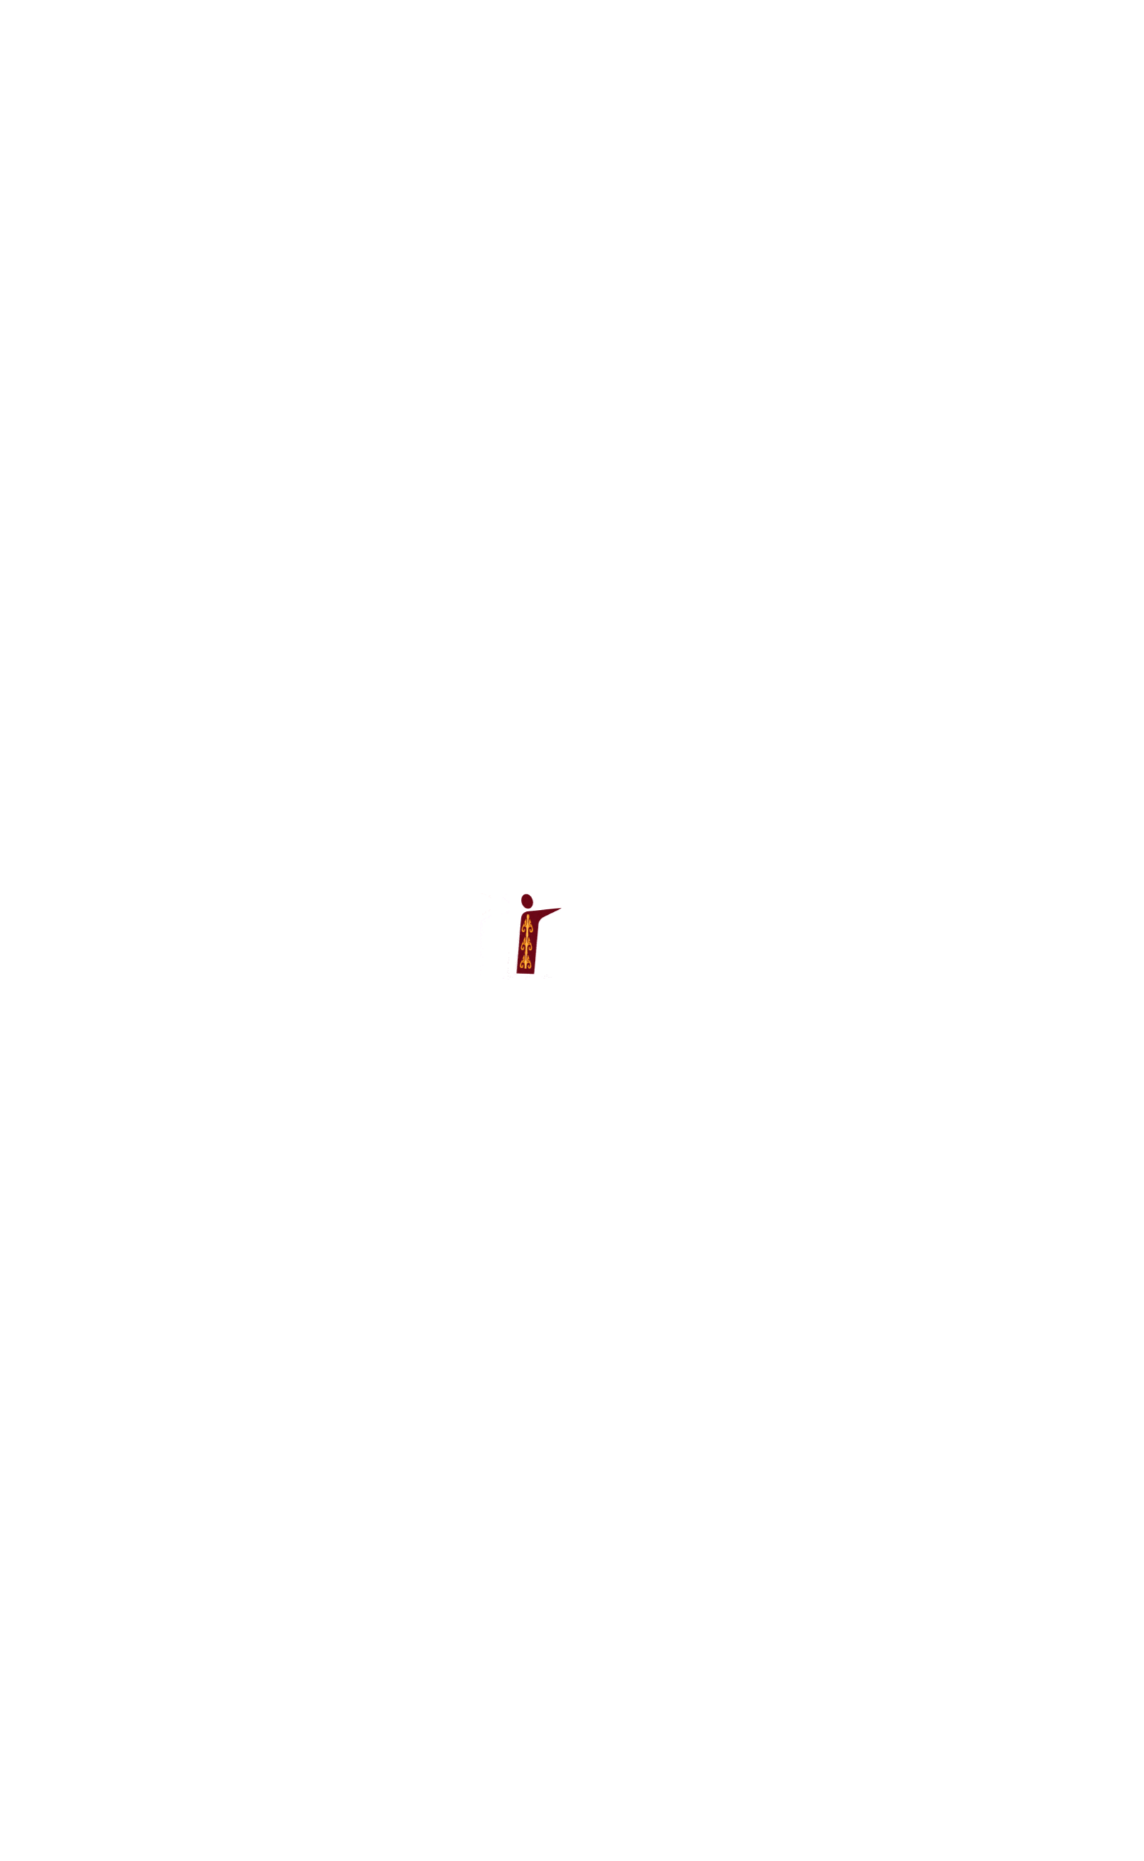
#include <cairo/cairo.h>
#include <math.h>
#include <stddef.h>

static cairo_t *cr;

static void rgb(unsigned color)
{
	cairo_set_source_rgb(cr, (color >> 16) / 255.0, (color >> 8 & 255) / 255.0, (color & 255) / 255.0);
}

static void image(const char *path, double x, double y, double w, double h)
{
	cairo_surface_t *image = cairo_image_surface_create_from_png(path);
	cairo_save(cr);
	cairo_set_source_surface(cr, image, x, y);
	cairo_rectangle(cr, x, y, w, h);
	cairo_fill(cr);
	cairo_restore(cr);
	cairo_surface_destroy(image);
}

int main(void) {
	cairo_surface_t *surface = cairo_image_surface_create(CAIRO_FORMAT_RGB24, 1144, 1861);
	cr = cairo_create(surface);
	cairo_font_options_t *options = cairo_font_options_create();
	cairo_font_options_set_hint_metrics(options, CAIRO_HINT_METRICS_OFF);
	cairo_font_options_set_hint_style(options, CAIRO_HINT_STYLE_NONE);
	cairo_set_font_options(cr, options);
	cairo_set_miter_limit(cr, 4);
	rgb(0xffffff);
	cairo_paint(cr);
	image("img/1.png", 480, 893, 82, 87);
	cairo_surface_write_to_png(surface, "page.png");
	cairo_font_options_destroy(options);
	cairo_destroy(cr);
	cairo_surface_destroy(surface);
	return 0;
}
